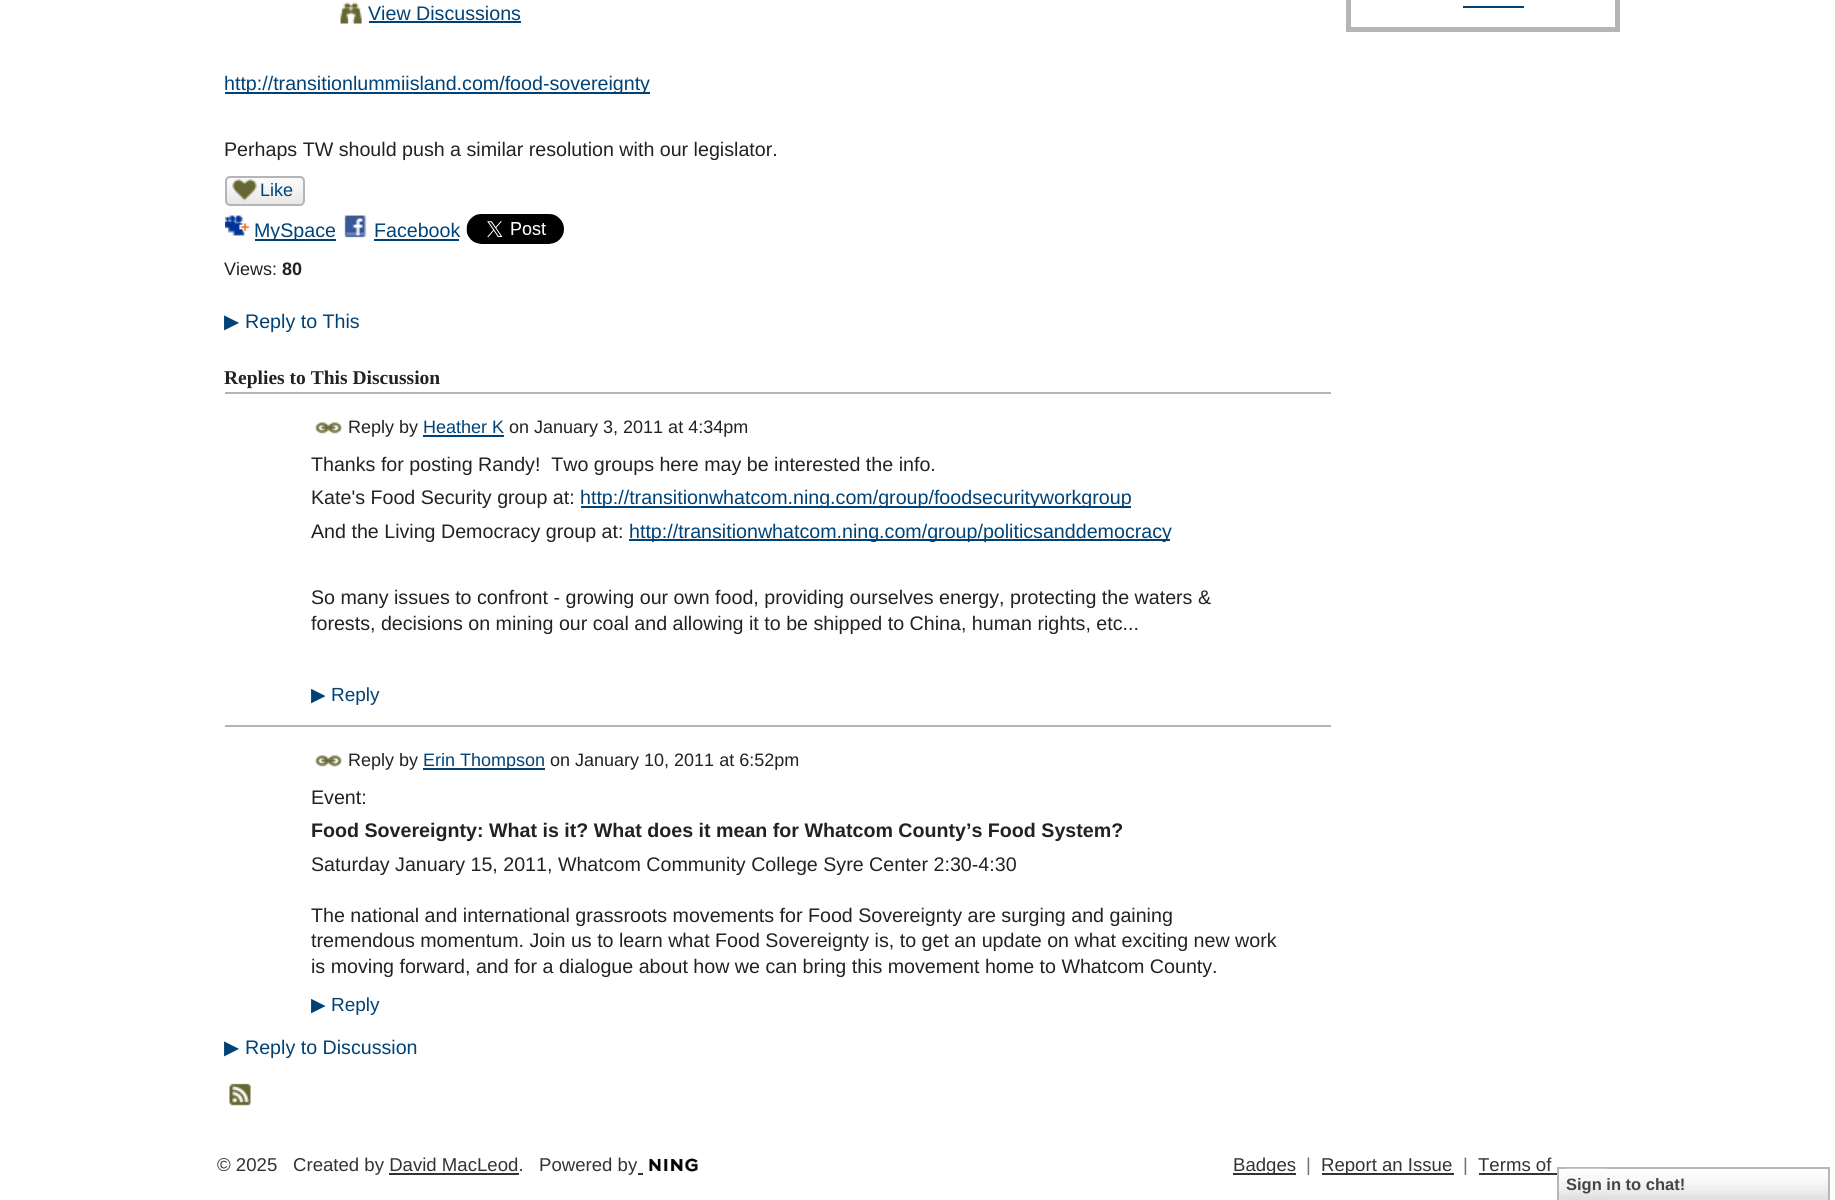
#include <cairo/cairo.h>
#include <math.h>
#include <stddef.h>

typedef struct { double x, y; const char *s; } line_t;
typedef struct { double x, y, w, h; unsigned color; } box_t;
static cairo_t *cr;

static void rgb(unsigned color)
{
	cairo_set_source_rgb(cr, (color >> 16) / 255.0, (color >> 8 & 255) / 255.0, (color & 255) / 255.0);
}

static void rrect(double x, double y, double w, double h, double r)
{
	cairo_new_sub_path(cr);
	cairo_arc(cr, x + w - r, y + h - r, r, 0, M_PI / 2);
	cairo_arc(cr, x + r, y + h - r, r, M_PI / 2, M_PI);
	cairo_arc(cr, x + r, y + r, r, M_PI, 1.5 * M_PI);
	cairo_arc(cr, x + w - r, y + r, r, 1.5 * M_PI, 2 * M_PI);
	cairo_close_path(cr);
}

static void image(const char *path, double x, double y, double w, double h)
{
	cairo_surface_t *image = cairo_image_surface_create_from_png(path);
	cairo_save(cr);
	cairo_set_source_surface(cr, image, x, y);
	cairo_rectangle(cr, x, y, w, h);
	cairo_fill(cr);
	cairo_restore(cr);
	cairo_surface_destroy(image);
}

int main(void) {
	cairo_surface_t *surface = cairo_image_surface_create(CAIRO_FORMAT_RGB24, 1835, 1200);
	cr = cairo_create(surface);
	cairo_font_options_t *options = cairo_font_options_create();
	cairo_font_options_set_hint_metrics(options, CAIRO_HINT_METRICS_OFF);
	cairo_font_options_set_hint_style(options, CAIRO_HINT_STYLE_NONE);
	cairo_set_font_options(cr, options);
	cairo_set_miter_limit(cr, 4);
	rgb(0xffffff);
	cairo_paint(cr);
	image("img/1.png", 340, 2, 22, 22);
	rgb(0x004276);
	cairo_rectangle(cr, 369, 21, 152, 2);
	cairo_fill(cr);
	cairo_rectangle(cr, 225, 92, 425, 2);
	cairo_fill(cr);
	image("img/2.png", 225, 178, 80, 26);
	rrect(226, 177, 78, 28, 4);
	rgb(0xb5b5b5);
	cairo_stroke(cr);
	image("img/3.png", 232, 179, 25, 22);
	image("img/4.png", 225, 215, 25, 21);
	rgb(0x004276);
	cairo_rectangle(cr, 255, 239, 81, 2);
	cairo_fill(cr);
	image("img/5.png", 344, 215, 23, 23);
	cairo_rectangle(cr, 374, 239, 85, 2);
	cairo_fill(cr);
	image("img/6.png", 466, 214, 98, 30);
	rgb(0xb5b5b5);
	cairo_rectangle(cr, 225, 392, 1106, 2);
	cairo_fill(cr);
	image("img/7.png", 315, 422, 28, 12);
	{
		static const box_t items[] = {
			{423, 435, 81, 2, 0x004276},
			{581, 506, 550, 2, 0x004276},
			{629, 539, 541, 2, 0x004276},
			{225, 725, 1106, 2, 0xb5b5b5},
		};
		for (size_t i = 0; i < sizeof items / sizeof *items; i++) {
			rgb(items[i].color);
			cairo_rectangle(cr, items[i].x, items[i].y, items[i].w, items[i].h);
			cairo_fill(cr);
		}
	}
	image("img/7.png", 315, 755, 28, 12);
	rgb(0x004276);
	cairo_rectangle(cr, 423, 768, 122, 2);
	cairo_fill(cr);
	image("img/8.png", 229, 1083, 22, 23);
	cairo_rectangle(cr, 1348.5, -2.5, 269, 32);
	rgb(0xb5b5b5);
	cairo_set_line_width(cr, 5);
	cairo_stroke(cr);
	rgb(0x004276);
	cairo_rectangle(cr, 1463, 6, 61, 2);
	cairo_fill(cr);
	image("img/9.png", 649, 1158, 49, 14);
	{
		static const box_t items[] = {
			{389, 1173, 130, 2, 0x333333},
			{638, 1173, 5, 2, 0x333333},
			{1233, 1173, 63, 2, 0x333333},
			{1322, 1173, 132, 2, 0x333333},
			{1479, 1173, 78, 2, 0x333333},
		};
		for (size_t i = 0; i < sizeof items / sizeof *items; i++) {
			rgb(items[i].color);
			cairo_rectangle(cr, items[i].x, items[i].y, items[i].w, items[i].h);
			cairo_fill(cr);
		}
	}
	image("img/10.png", 1559, 1169, 269, 31);
	cairo_rectangle(cr, 1558, 1168, 271, 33);
	rgb(0xb7b7b7);
	cairo_set_line_width(cr, 2);
	cairo_stroke(cr);
	image("img/11.png", 1566, 1168, 41, 32);
	cairo_select_font_face(cr, "Liberation Sans", CAIRO_FONT_SLANT_NORMAL, CAIRO_FONT_WEIGHT_NORMAL);
	cairo_set_font_size(cr, 19.65);
	rgb(0x004276);
	cairo_move_to(cr, 368, 20);
	cairo_show_text(cr, "View Discussions");
	cairo_move_to(cr, 224, 90);
	cairo_show_text(cr, "http://transitionlummiisland.com/food-sovereignty");
	rgb(0x222222);
	cairo_move_to(cr, 224, 156);
	cairo_show_text(cr, "Perhaps TW should push a similar resolution with our legislator.");
	cairo_set_font_size(cr, 18);
	rgb(0x004276);
	cairo_move_to(cr, 260, 196);
	cairo_show_text(cr, "Like");
	cairo_set_font_size(cr, 19.65);
	cairo_move_to(cr, 254, 237);
	cairo_show_text(cr, "MySpace");
	cairo_move_to(cr, 374, 237);
	cairo_show_text(cr, "Facebook");
	cairo_set_font_size(cr, 18);
	rgb(0x222222);
	cairo_move_to(cr, 224, 275);
	cairo_show_text(cr, "Views:");
	cairo_select_font_face(cr, "Liberation Sans", CAIRO_FONT_SLANT_NORMAL, CAIRO_FONT_WEIGHT_BOLD);
	cairo_move_to(cr, 282, 275);
	cairo_show_text(cr, "80");
	cairo_select_font_face(cr, "DejaVu Sans", CAIRO_FONT_SLANT_NORMAL, CAIRO_FONT_WEIGHT_NORMAL);
	cairo_set_font_size(cr, 19.65);
	rgb(0x004276);
	cairo_move_to(cr, 224, 328);
	cairo_show_text(cr, "▶");
	cairo_select_font_face(cr, "Liberation Sans", CAIRO_FONT_SLANT_NORMAL, CAIRO_FONT_WEIGHT_NORMAL);
	cairo_move_to(cr, 245, 328);
	cairo_show_text(cr, "Reply to This");
	cairo_select_font_face(cr, "Liberation Serif", CAIRO_FONT_SLANT_NORMAL, CAIRO_FONT_WEIGHT_BOLD);
	cairo_set_font_size(cr, 19.5);
	rgb(0x222222);
	cairo_move_to(cr, 224, 384);
	cairo_show_text(cr, "Replies to This Discussion");
	cairo_select_font_face(cr, "Liberation Sans", CAIRO_FONT_SLANT_NORMAL, CAIRO_FONT_WEIGHT_NORMAL);
	cairo_set_font_size(cr, 18);
	cairo_move_to(cr, 348, 433);
	cairo_show_text(cr, "Reply by");
	rgb(0x004276);
	cairo_move_to(cr, 423, 433);
	cairo_show_text(cr, "Heather K");
	rgb(0x222222);
	cairo_move_to(cr, 509, 433);
	cairo_show_text(cr, "on January 3, 2011 at 4:34pm");
	cairo_set_font_size(cr, 19.65);
	cairo_move_to(cr, 311, 471);
	cairo_show_text(cr, "Thanks for posting Randy!  Two groups here may be interested the info.");
	cairo_move_to(cr, 311, 504);
	cairo_show_text(cr, "Kate's Food Security group at:");
	rgb(0x004276);
	cairo_move_to(cr, 580, 504);
	cairo_show_text(cr, "http://transitionwhatcom.ning.com/group/foodsecurityworkgroup");
	rgb(0x222222);
	cairo_move_to(cr, 311, 538);
	cairo_show_text(cr, "And the Living Democracy group at:");
	rgb(0x004276);
	cairo_move_to(cr, 629, 538);
	cairo_show_text(cr, "http://transitionwhatcom.ning.com/group/politicsanddemocracy");
	rgb(0x222222);
	cairo_move_to(cr, 311, 604);
	cairo_show_text(cr, "So many issues to confront - growing our own food, providing ourselves energy, protecting the waters &");
	cairo_move_to(cr, 311, 630);
	cairo_show_text(cr, "forests, decisions on mining our coal and allowing it to be shipped to China, human rights, etc...");
	cairo_select_font_face(cr, "DejaVu Sans", CAIRO_FONT_SLANT_NORMAL, CAIRO_FONT_WEIGHT_NORMAL);
	cairo_set_font_size(cr, 19);
	rgb(0x004276);
	cairo_move_to(cr, 311, 701);
	cairo_show_text(cr, "▶");
	cairo_select_font_face(cr, "Liberation Sans", CAIRO_FONT_SLANT_NORMAL, CAIRO_FONT_WEIGHT_NORMAL);
	cairo_move_to(cr, 331, 701);
	cairo_show_text(cr, "Reply");
	cairo_set_font_size(cr, 18);
	rgb(0x222222);
	cairo_move_to(cr, 348, 766);
	cairo_show_text(cr, "Reply by");
	rgb(0x004276);
	cairo_move_to(cr, 423, 766);
	cairo_show_text(cr, "Erin Thompson");
	rgb(0x222222);
	cairo_move_to(cr, 550, 766);
	cairo_show_text(cr, "on January 10, 2011 at 6:52pm");
	cairo_set_font_size(cr, 19.65);
	cairo_move_to(cr, 311, 804);
	cairo_show_text(cr, "Event:");
	cairo_select_font_face(cr, "Liberation Sans", CAIRO_FONT_SLANT_NORMAL, CAIRO_FONT_WEIGHT_BOLD);
	cairo_move_to(cr, 311, 837);
	cairo_show_text(cr, "Food Sovereignty: What is it? What does it mean for Whatcom County’s Food System?");
	cairo_select_font_face(cr, "Liberation Sans", CAIRO_FONT_SLANT_NORMAL, CAIRO_FONT_WEIGHT_NORMAL);
	{
		static const line_t items[] = {
			{311, 871, "Saturday January 15, 2011, Whatcom Community College Syre Center 2:30-4:30"},
			{311, 922, "The national and international grassroots movements for Food Sovereignty are surging and gaining"},
			{311, 947, "tremendous momentum. Join us to learn what Food Sovereignty is, to get an update on what exciting new work"},
			{311, 973, "is moving forward, and for a dialogue about how we can bring this movement home to Whatcom County."},
		};
		for (size_t i = 0; i < sizeof items / sizeof *items; i++) {
			cairo_move_to(cr, items[i].x, items[i].y);
			cairo_show_text(cr, items[i].s);
		}
	}
	cairo_select_font_face(cr, "DejaVu Sans", CAIRO_FONT_SLANT_NORMAL, CAIRO_FONT_WEIGHT_NORMAL);
	cairo_set_font_size(cr, 19);
	rgb(0x004276);
	cairo_move_to(cr, 311, 1011);
	cairo_show_text(cr, "▶");
	cairo_select_font_face(cr, "Liberation Sans", CAIRO_FONT_SLANT_NORMAL, CAIRO_FONT_WEIGHT_NORMAL);
	cairo_move_to(cr, 331, 1011);
	cairo_show_text(cr, "Reply");
	cairo_select_font_face(cr, "DejaVu Sans", CAIRO_FONT_SLANT_NORMAL, CAIRO_FONT_WEIGHT_NORMAL);
	cairo_set_font_size(cr, 19.65);
	cairo_move_to(cr, 224, 1054);
	cairo_show_text(cr, "▶");
	cairo_select_font_face(cr, "Liberation Sans", CAIRO_FONT_SLANT_NORMAL, CAIRO_FONT_WEIGHT_NORMAL);
	cairo_move_to(cr, 245, 1054);
	cairo_show_text(cr, "Reply to Discussion");
	cairo_set_font_size(cr, 18.6);
	rgb(0x333333);
	{
		static const line_t items[] = {
			{217, 1171, "© 2025"},
			{293, 1171, "Created by David MacLeod."},
			{539, 1171, "Powered by"},
			{1233, 1171, "Badges"},
		};
		for (size_t i = 0; i < sizeof items / sizeof *items; i++) {
			cairo_move_to(cr, items[i].x, items[i].y);
			cairo_show_text(cr, items[i].s);
		}
	}
	rgb(0x6f6f6f);
	cairo_move_to(cr, 1306, 1171);
	cairo_show_text(cr, "|");
	rgb(0x333333);
	cairo_move_to(cr, 1321, 1171);
	cairo_show_text(cr, "Report an Issue");
	rgb(0x6f6f6f);
	cairo_move_to(cr, 1463, 1171);
	cairo_show_text(cr, "|");
	rgb(0x333333);
	cairo_move_to(cr, 1478, 1171);
	cairo_show_text(cr, "Terms of");
	cairo_select_font_face(cr, "Liberation Sans", CAIRO_FONT_SLANT_NORMAL, CAIRO_FONT_WEIGHT_BOLD);
	cairo_set_font_size(cr, 16.5);
	rgb(0x454545);
	cairo_move_to(cr, 1566, 1190);
	cairo_show_text(cr, "Sign in to chat!");
	cairo_surface_write_to_png(surface, "page.png");
	cairo_font_options_destroy(options);
	cairo_destroy(cr);
	cairo_surface_destroy(surface);
	return 0;
}
